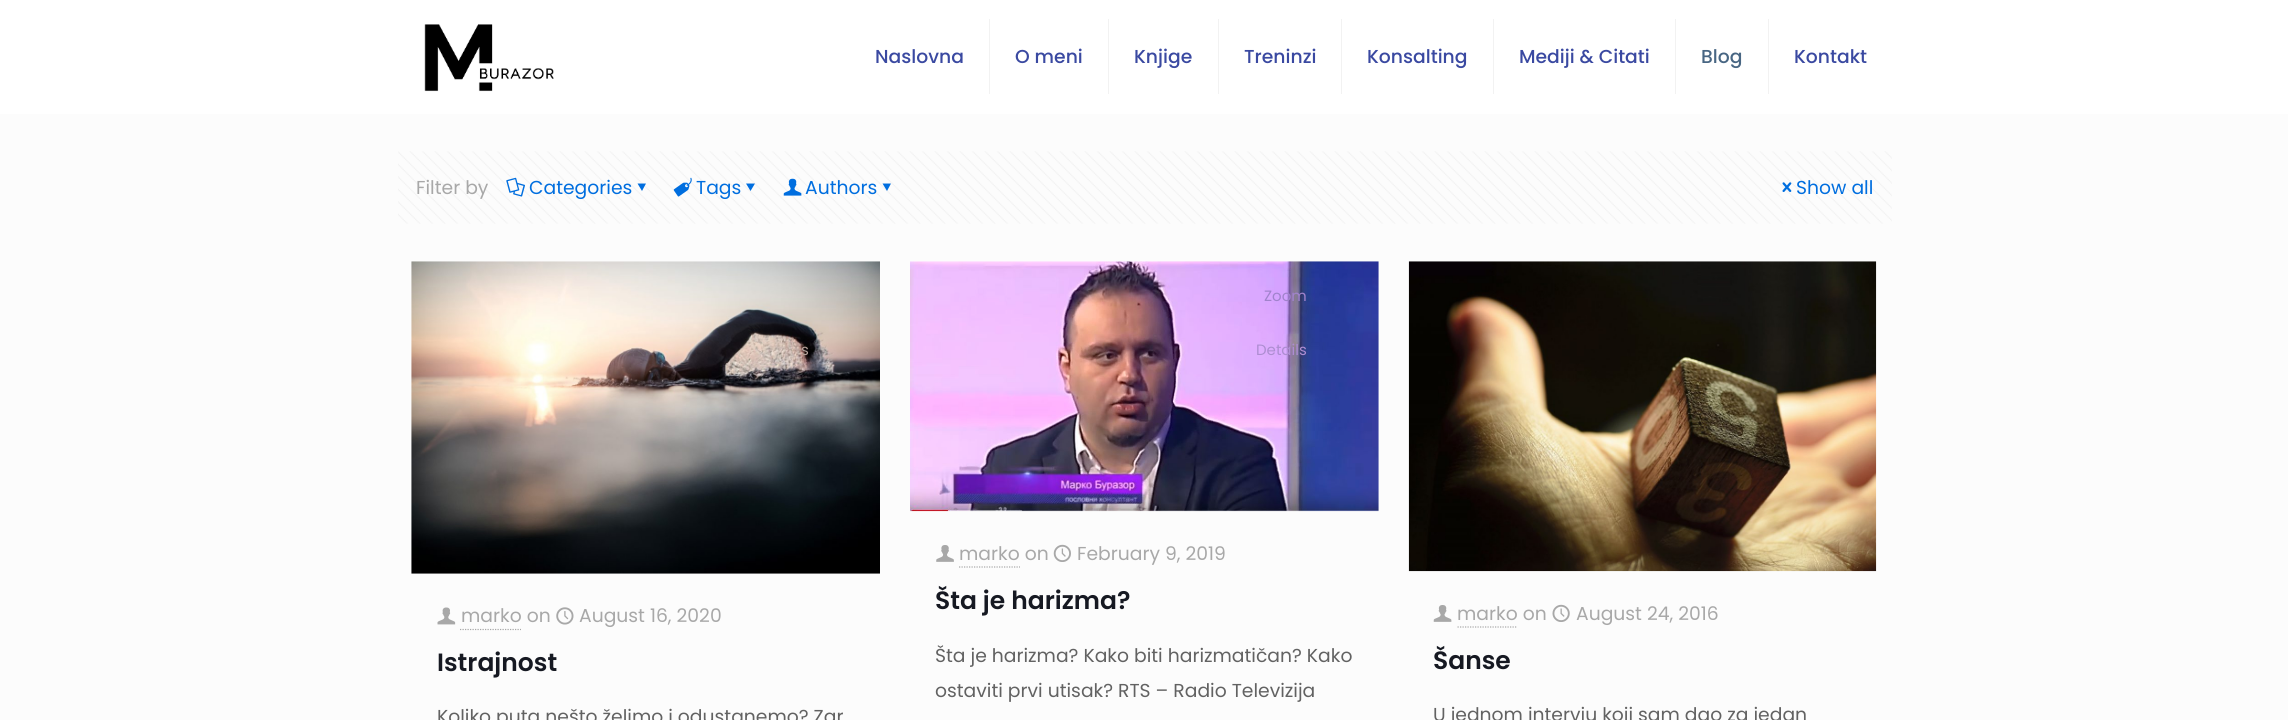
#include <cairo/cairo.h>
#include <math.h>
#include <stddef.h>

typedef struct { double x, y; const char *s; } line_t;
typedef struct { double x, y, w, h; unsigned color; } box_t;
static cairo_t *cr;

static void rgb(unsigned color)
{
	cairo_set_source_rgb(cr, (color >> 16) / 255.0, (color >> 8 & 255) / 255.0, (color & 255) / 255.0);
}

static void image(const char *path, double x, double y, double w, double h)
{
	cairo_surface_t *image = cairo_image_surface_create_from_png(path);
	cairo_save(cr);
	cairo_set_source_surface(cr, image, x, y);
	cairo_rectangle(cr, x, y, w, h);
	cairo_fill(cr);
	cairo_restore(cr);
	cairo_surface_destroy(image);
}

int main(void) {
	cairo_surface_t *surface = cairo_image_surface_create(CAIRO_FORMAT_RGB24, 2288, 720);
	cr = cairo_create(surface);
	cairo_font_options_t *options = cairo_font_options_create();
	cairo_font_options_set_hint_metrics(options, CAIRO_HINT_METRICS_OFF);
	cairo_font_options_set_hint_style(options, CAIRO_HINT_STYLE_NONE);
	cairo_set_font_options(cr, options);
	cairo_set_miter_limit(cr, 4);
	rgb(0xfcfcfc);
	cairo_paint(cr);
	rgb(0xffffff);
	cairo_rectangle(cr, 0, 0, 2288, 114);
	cairo_fill(cr);
	image("img/1.png", 424, 24, 130, 68);
	{
		static const box_t items[] = {
			{989, 19, 1, 75, 0xf2f2f2},
			{1108, 19, 1, 75, 0xf2f2f2},
			{1218, 19, 1, 75, 0xf2f2f2},
			{1341, 19, 1, 75, 0xf2f2f2},
			{1493, 19, 1, 75, 0xf2f2f2},
			{1675, 19, 1, 75, 0xf2f2f2},
			{1768, 19, 1, 75, 0xf2f2f2},
		};
		for (size_t i = 0; i < sizeof items / sizeof *items; i++) {
			rgb(items[i].color);
			cairo_rectangle(cr, items[i].x, items[i].y, items[i].w, items[i].h);
			cairo_fill(cr);
		}
	}
	image("img/2.png", 398, 151, 1494, 73);
	image("img/3.png", 506, 177, 19, 20);
	rgb(0x006edf);
	cairo_new_path(cr);
	cairo_move_to(cr, 646, 183.5);
	cairo_line_to(cr, 642, 191);
	cairo_line_to(cr, 637.5, 183.5);
	cairo_close_path(cr);
	cairo_fill(cr);
	image("img/4.png", 673, 177, 19, 20);
	cairo_new_path(cr);
	cairo_move_to(cr, 755, 183.5);
	cairo_line_to(cr, 750.5, 191);
	cairo_line_to(cr, 746, 183.5);
	cairo_close_path(cr);
	cairo_fill(cr);
	image("img/5.png", 783, 178, 19, 18);
	cairo_new_path(cr);
	cairo_move_to(cr, 891, 183.5);
	cairo_line_to(cr, 887, 191);
	cairo_line_to(cr, 882.5, 183.5);
	cairo_close_path(cr);
	cairo_fill(cr);
	image("img/6.png", 1782, 182, 10, 10);
	image("img/7.png", 411, 261, 469, 313);
	image("img/8.png", 437, 607, 19, 18);
	cairo_new_path(cr);
	cairo_move_to(cr, 460, 629.5);
	cairo_line_to(cr, 521, 629.5);
	rgb(0xa8a8a8);
	cairo_set_line_width(cr, 1.2);
	cairo_set_dash(cr, (double[]){1.25, 1.25}, 2, 0);
	cairo_stroke(cr);
	image("img/9.png", 556, 607, 18, 18);
	image("img/10.png", 910, 261, 469, 251);
	image("img/11.png", 936, 545, 18, 17);
	cairo_new_path(cr);
	cairo_move_to(cr, 959, 567);
	cairo_line_to(cr, 1020, 567);
	cairo_stroke(cr);
	image("img/12.png", 1053, 544, 18, 18);
	image("img/13.png", 1408, 261, 469, 311);
	image("img/14.png", 1433, 605, 19, 17);
	cairo_new_path(cr);
	cairo_move_to(cr, 1457.5, 627);
	cairo_line_to(cr, 1517.5, 627);
	cairo_stroke(cr);
	image("img/15.png", 1552, 604, 18, 18);
	cairo_select_font_face(cr, "Poppins Medium", CAIRO_FONT_SLANT_NORMAL, CAIRO_FONT_WEIGHT_NORMAL);
	cairo_set_font_size(cr, 18.75);
	rgb(0x3a49a1);
	{
		static const line_t items[] = {
			{875, 63, "Naslovna"},
			{1015, 63, "O meni"},
			{1134, 63, "Knjige"},
			{1244, 63, "Treninzi"},
			{1367, 63, "Konsalting"},
			{1519, 63, "Mediji & Citati"},
		};
		for (size_t i = 0; i < sizeof items / sizeof *items; i++) {
			cairo_move_to(cr, items[i].x, items[i].y);
			cairo_show_text(cr, items[i].s);
		}
	}
	rgb(0x486683);
	cairo_move_to(cr, 1701, 63);
	cairo_show_text(cr, "Blog");
	rgb(0x3a49a1);
	cairo_move_to(cr, 1794, 63);
	cairo_show_text(cr, "Kontakt");
	cairo_select_font_face(cr, "Poppins", CAIRO_FONT_SLANT_NORMAL, CAIRO_FONT_WEIGHT_NORMAL);
	rgb(0xa8a8a8);
	cairo_move_to(cr, 416, 194);
	cairo_show_text(cr, "Filter by");
	rgb(0x006edf);
	{
		static const line_t items[] = {
			{529, 194, "Categories"},
			{696, 194, "Tags"},
			{805, 194, "Authors"},
			{1796, 194, "Show all"},
		};
		for (size_t i = 0; i < sizeof items / sizeof *items; i++) {
			cairo_move_to(cr, items[i].x, items[i].y);
			cairo_show_text(cr, items[i].s);
		}
	}
	cairo_set_font_size(cr, 15);
	rgb(0xb5a29a);
	cairo_move_to(cr, 801, 355);
	cairo_show_text(cr, "s");
	cairo_set_font_size(cr, 18.75);
	rgb(0xa8a8a8);
	cairo_move_to(cr, 461, 622);
	cairo_show_text(cr, "marko on");
	cairo_move_to(cr, 579, 622);
	cairo_show_text(cr, "August 16, 2020");
	cairo_select_font_face(cr, "Poppins SemiBold", CAIRO_FONT_SLANT_NORMAL, CAIRO_FONT_WEIGHT_NORMAL);
	cairo_set_font_size(cr, 25);
	rgb(0x161922);
	cairo_move_to(cr, 437, 671);
	cairo_show_text(cr, "Istrajnost");
	cairo_select_font_face(cr, "Poppins", CAIRO_FONT_SLANT_NORMAL, CAIRO_FONT_WEIGHT_NORMAL);
	cairo_set_font_size(cr, 18.75);
	rgb(0x626262);
	cairo_move_to(cr, 437, 723);
	cairo_show_text(cr, "Koliko puta nešto želimo i odustanemo? Zar");
	cairo_set_font_size(cr, 15);
	rgb(0xa183cc);
	cairo_move_to(cr, 1264, 301);
	cairo_show_text(cr, "Zoom");
	rgb(0xad8dd1);
	cairo_move_to(cr, 1256, 355);
	cairo_show_text(cr, "Details");
	cairo_set_font_size(cr, 18.75);
	rgb(0xa8a8a8);
	cairo_move_to(cr, 959, 560);
	cairo_show_text(cr, "marko on");
	cairo_move_to(cr, 1077, 560);
	cairo_show_text(cr, "February 9, 2019");
	cairo_select_font_face(cr, "Poppins SemiBold", CAIRO_FONT_SLANT_NORMAL, CAIRO_FONT_WEIGHT_NORMAL);
	cairo_set_font_size(cr, 25);
	rgb(0x161922);
	cairo_move_to(cr, 935, 609);
	cairo_show_text(cr, "Šta je harizma?");
	cairo_select_font_face(cr, "Poppins", CAIRO_FONT_SLANT_NORMAL, CAIRO_FONT_WEIGHT_NORMAL);
	cairo_set_font_size(cr, 18.75);
	rgb(0x626262);
	cairo_move_to(cr, 935, 662);
	cairo_show_text(cr, "Šta je harizma? Kako biti harizmatičan? Kako");
	cairo_move_to(cr, 935, 697);
	cairo_show_text(cr, "ostaviti prvi utisak? RTS – Radio Televizija");
	rgb(0xa8a8a8);
	cairo_move_to(cr, 1457, 620);
	cairo_show_text(cr, "marko on");
	cairo_move_to(cr, 1576, 620);
	cairo_show_text(cr, "August 24, 2016");
	cairo_select_font_face(cr, "Poppins SemiBold", CAIRO_FONT_SLANT_NORMAL, CAIRO_FONT_WEIGHT_NORMAL);
	cairo_set_font_size(cr, 25);
	rgb(0x161922);
	cairo_move_to(cr, 1433, 669);
	cairo_show_text(cr, "Šanse");
	cairo_select_font_face(cr, "Poppins", CAIRO_FONT_SLANT_NORMAL, CAIRO_FONT_WEIGHT_NORMAL);
	cairo_set_font_size(cr, 18.75);
	rgb(0x626262);
	cairo_move_to(cr, 1433, 721);
	cairo_show_text(cr, "U jednom intervju koji sam dao za jedan");
	cairo_surface_write_to_png(surface, "page.png");
	cairo_font_options_destroy(options);
	cairo_destroy(cr);
	cairo_surface_destroy(surface);
	return 0;
}
